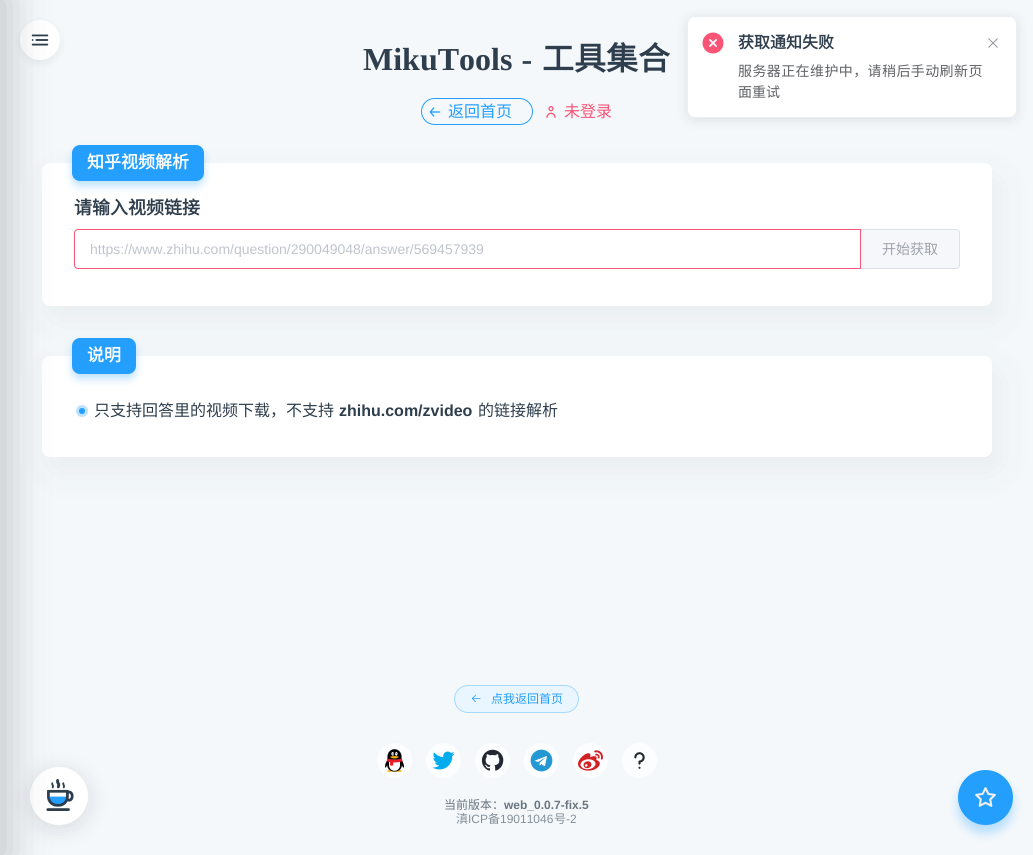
#include <cairo/cairo.h>
#include <math.h>
#include <stddef.h>

static cairo_t *cr;

static void rgb(unsigned color)
{
	cairo_set_source_rgb(cr, (color >> 16) / 255.0, (color >> 8 & 255) / 255.0, (color & 255) / 255.0);
}

static void tracked(double x, double y, const char *s, double letter, double word)
{
	cairo_move_to(cr, x, y);
	while (*s) {
		char ch[5] = {0};
		int n = 0;
		do ch[n++] = *s++; while ((*s & 0xC0) == 0x80);
		cairo_show_text(cr, ch);
		cairo_rel_move_to(cr, letter + word * (*ch == ' '), 0);
	}
}

static void rrect(double x, double y, double w, double h, double r)
{
	cairo_new_sub_path(cr);
	cairo_arc(cr, x + w - r, y + h - r, r, 0, M_PI / 2);
	cairo_arc(cr, x + r, y + h - r, r, M_PI / 2, M_PI);
	cairo_arc(cr, x + r, y + r, r, M_PI, 1.5 * M_PI);
	cairo_arc(cr, x + w - r, y + r, r, 1.5 * M_PI, 2 * M_PI);
	cairo_close_path(cr);
}

static void soft_shadow(double x, double y, double w, double h, double r, double blur, double alpha)
{
	cairo_push_group_with_content(cr, CAIRO_CONTENT_ALPHA);
	cairo_set_operator(cr, CAIRO_OPERATOR_SOURCE);
	for (int i = 15; i >= -15 && fmin(w, h) + blur * i / 3 > 0; i -= 2) {
		double e = blur * i / 6;
		cairo_set_source_rgba(cr, 0, 0, 0, alpha * erfc((i - 1) / 8.5) / 2);
		rrect(x - e, y - e, w + 2 * e, h + 2 * e, fmax(0, fmin(r + e + blur * .6, fmin(w, h) / 2 + e)));
		cairo_fill(cr);
	}
	cairo_pattern_t *soft = cairo_pop_group(cr);
	cairo_mask(cr, soft);
	cairo_pattern_destroy(soft);
}

static void image(const char *path, double x, double y, double w, double h)
{
	cairo_surface_t *image = cairo_image_surface_create_from_png(path);
	cairo_save(cr);
	cairo_set_source_surface(cr, image, x, y);
	cairo_rectangle(cr, x, y, w, h);
	cairo_fill(cr);
	cairo_restore(cr);
	cairo_surface_destroy(image);
}

int main(void) {
	cairo_surface_t *surface = cairo_image_surface_create(CAIRO_FORMAT_RGB24, 1033, 855);
	cr = cairo_create(surface);
	cairo_font_options_t *options = cairo_font_options_create();
	cairo_font_options_set_hint_metrics(options, CAIRO_HINT_METRICS_OFF);
	cairo_font_options_set_hint_style(options, CAIRO_HINT_STYLE_NONE);
	cairo_set_font_options(cr, options);
	cairo_set_miter_limit(cr, 4);
	rgb(0xf4f8fb);
	cairo_paint(cr);
	rgb(0x000000);
	soft_shadow(687, 18, 330, 102, 8, 6, 0.1);
	rgb(0xffffff);
	rrect(687.5, 16.5, 329, 101, 7.5);
	cairo_fill_preserve(cr);
	rgb(0xebeef5);
	cairo_set_line_width(cr, 1);
	cairo_stroke(cr);
	image("img/1.png", 702, 32, 22, 22);
	image("img/2.png", 988, 38, 10, 10);
	rgb(0x000810);
	soft_shadow(22, 25, 36, 36, 18, 5.5, 0.08);
	rgb(0xffffff);
	cairo_arc(cr, 40, 40, 20, 0, 2 * M_PI);
	cairo_fill(cr);
	image("img/3.png", 31, 34, 18, 12);
	rrect(421.5, 98.5, 111, 26, 13);
	rgb(0x249ffd);
	cairo_stroke(cr);
	rgb(0x272c31);
	soft_shadow(50, 177, 950, 143, 8, 19, 0.06);
	rgb(0xffffff);
	rrect(42, 163, 950, 143, 8);
	cairo_fill(cr);
	rgb(0x272c31);
	soft_shadow(50, 370, 950, 101, 8, 19, 0.06);
	rgb(0xffffff);
	rrect(42, 356, 950, 101, 8);
	cairo_fill(cr);
	rgb(0x000810);
	soft_shadow(28, 769, 62, 62, 31, 10, 0.1);
	rgb(0xffffff);
	cairo_arc(cr, 59, 796, 29, 0, 2 * M_PI);
	cairo_fill(cr);
	image("img/13.png", 46, 779, 28, 32);
	rgb(0x000000);
	soft_shadow(-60, -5, 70, 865, 0, 20, 0.2);
	image("img/4.png", 429, 107, 12, 10);
	image("img/5.png", 546, 106, 10, 12);
	rgb(0x249ffd);
	soft_shadow(72, 150, 132, 36, 8, 4, 0.3);
	rgb(0x249ffd);
	rrect(72, 145, 132, 36, 8);
	cairo_fill(cr);
	cairo_new_path(cr);
	cairo_move_to(cr, 78, 229.5);
	cairo_line_to(cr, 860.5, 229.5);
	cairo_line_to(cr, 860.5, 268.5);
	cairo_line_to(cr, 78, 268.5);
	cairo_curve_to(cr, 76, 268.5, 74.5, 267, 74.5, 265);
	cairo_line_to(cr, 74.5, 233);
	cairo_curve_to(cr, 74.5, 231, 76, 229.5, 78, 229.5);
	cairo_close_path(cr);
	rgb(0xfa5477);
	cairo_stroke(cr);
	rgb(0xf5f7fa);
	cairo_new_path(cr);
	cairo_move_to(cr, 861, 229);
	cairo_line_to(cr, 956, 229);
	cairo_curve_to(cr, 958, 229, 960, 231, 960, 233);
	cairo_line_to(cr, 960, 265);
	cairo_curve_to(cr, 960, 267, 958, 269, 956, 269);
	cairo_line_to(cr, 861, 269);
	cairo_close_path(cr);
	cairo_fill(cr);
	rgb(0xdcdfe6);
	cairo_set_fill_rule(cr, CAIRO_FILL_RULE_EVEN_ODD);
	cairo_new_path(cr);
	cairo_move_to(cr, 861, 229);
	cairo_line_to(cr, 956, 229);
	cairo_curve_to(cr, 958, 229, 960, 231, 960, 233);
	cairo_line_to(cr, 960, 265);
	cairo_curve_to(cr, 960, 267, 958, 269, 956, 269);
	cairo_line_to(cr, 861, 269);
	cairo_close_path(cr);
	cairo_move_to(cr, 861, 230);
	cairo_line_to(cr, 956, 230);
	cairo_curve_to(cr, 958, 230, 959, 231, 959, 233);
	cairo_line_to(cr, 959, 265);
	cairo_curve_to(cr, 959, 267, 958, 268, 956, 268);
	cairo_line_to(cr, 861, 268);
	cairo_close_path(cr);
	cairo_fill(cr);
	rgb(0x249ffd);
	soft_shadow(72, 343, 64, 36, 8, 4, 0.3);
	rgb(0x249ffd);
	rrect(72, 338, 64, 36, 8);
	cairo_fill(cr);
	cairo_arc(cr, 82, 411, 4.5, 0, 2 * M_PI);
	cairo_fill_preserve(cr);
	rgb(0xbde2fe);
	cairo_set_line_width(cr, 3);
	cairo_stroke(cr);
	rgb(0xe9f5ff);
	rrect(454.5, 685.5, 124, 27, 13.5);
	cairo_fill_preserve(cr);
	rgb(0xa7d9fe);
	cairo_set_line_width(cr, 1);
	cairo_stroke(cr);
	image("img/6.png", 471, 694, 10, 9);
	cairo_set_source_rgba(cr, 1, 1, 1, 0.65);
	cairo_arc(cr, 394.5, 760.5, 17.5, 0, 2 * M_PI);
	cairo_fill(cr);
	image("img/7.png", 385, 749, 19, 23);
	cairo_arc(cr, 443.5, 760.5, 17.5, 0, 2 * M_PI);
	cairo_fill(cr);
	image("img/8.png", 432, 751, 23, 19);
	cairo_arc(cr, 492.5, 760.5, 17.5, 0, 2 * M_PI);
	cairo_fill(cr);
	image("img/9.png", 481, 749, 23, 22);
	cairo_arc(cr, 541.5, 760.5, 17.5, 0, 2 * M_PI);
	cairo_fill(cr);
	image("img/10.png", 530, 749, 23, 23);
	cairo_arc(cr, 590.5, 760.5, 17.5, 0, 2 * M_PI);
	cairo_fill(cr);
	image("img/11.png", 578, 750, 25, 21);
	cairo_arc(cr, 639.5, 760.5, 17.5, 0, 2 * M_PI);
	cairo_fill(cr);
	image("img/12.png", 634, 752, 11, 17);
	rgb(0x249ffd);
	soft_shadow(958, 778, 55, 55, 27.5, 5, 0.3);
	rgb(0x249ffd);
	cairo_arc(cr, 985.5, 797.5, 27.5, 0, 2 * M_PI);
	cairo_fill(cr);
	image("img/14.png", 975, 787, 21, 20);
	cairo_select_font_face(cr, "Noto Sans CJK SC", CAIRO_FONT_SLANT_NORMAL, CAIRO_FONT_WEIGHT_BOLD);
	cairo_set_font_size(cr, 16);
	rgb(0x2f3e4c);
	cairo_move_to(cr, 738, 48);
	cairo_show_text(cr, "获取通知失败");
	cairo_select_font_face(cr, "Noto Sans CJK SC", CAIRO_FONT_SLANT_NORMAL, CAIRO_FONT_WEIGHT_NORMAL);
	cairo_set_font_size(cr, 14);
	rgb(0x606266);
	tracked(738, 76, "服务器正在维护中，请稍后手动刷新页", 0.4, 0);
	cairo_move_to(cr, 738, 97);
	cairo_show_text(cr, "面重试");
	cairo_select_font_face(cr, "Liberation Serif", CAIRO_FONT_SLANT_NORMAL, CAIRO_FONT_WEIGHT_BOLD);
	cairo_set_font_size(cr, 32);
	rgb(0x2f3e4c);
	tracked(363, 70, "MikuTools -", 0, 1);
	cairo_select_font_face(cr, "Noto Sans CJK SC", CAIRO_FONT_SLANT_NORMAL, CAIRO_FONT_WEIGHT_BOLD);
	cairo_move_to(cr, 542, 70);
	cairo_show_text(cr, "工具集合");
	cairo_select_font_face(cr, "Noto Sans CJK SC", CAIRO_FONT_SLANT_NORMAL, CAIRO_FONT_WEIGHT_NORMAL);
	cairo_set_font_size(cr, 16);
	rgb(0x249ffd);
	cairo_move_to(cr, 448, 117);
	cairo_show_text(cr, "返回首页");
	rgb(0xfa5477);
	cairo_move_to(cr, 564, 117);
	cairo_show_text(cr, "未登录");
	cairo_select_font_face(cr, "Noto Sans CJK SC", CAIRO_FONT_SLANT_NORMAL, CAIRO_FONT_WEIGHT_BOLD);
	cairo_set_font_size(cr, 17);
	rgb(0xffffff);
	cairo_move_to(cr, 87, 168);
	cairo_show_text(cr, "知乎视频解析");
	cairo_set_font_size(cr, 18);
	rgb(0x2f3e4c);
	cairo_move_to(cr, 74, 214);
	cairo_show_text(cr, "请输入视频链接");
	cairo_select_font_face(cr, "Liberation Sans", CAIRO_FONT_SLANT_NORMAL, CAIRO_FONT_WEIGHT_NORMAL);
	cairo_set_font_size(cr, 14);
	rgb(0xc0c4cc);
	cairo_move_to(cr, 90, 254);
	cairo_show_text(cr, "https://www.zhihu.com/question/290049048/answer/569457939");
	cairo_select_font_face(cr, "Noto Sans CJK SC", CAIRO_FONT_SLANT_NORMAL, CAIRO_FONT_WEIGHT_NORMAL);
	rgb(0x9da2ab);
	cairo_move_to(cr, 882, 254);
	cairo_show_text(cr, "开始获取");
	cairo_select_font_face(cr, "Noto Sans CJK SC", CAIRO_FONT_SLANT_NORMAL, CAIRO_FONT_WEIGHT_BOLD);
	cairo_set_font_size(cr, 17);
	rgb(0xffffff);
	cairo_move_to(cr, 87, 361);
	cairo_show_text(cr, "说明");
	cairo_select_font_face(cr, "Noto Sans CJK SC", CAIRO_FONT_SLANT_NORMAL, CAIRO_FONT_WEIGHT_NORMAL);
	cairo_set_font_size(cr, 16);
	rgb(0x2f3e4c);
	cairo_move_to(cr, 94, 416);
	cairo_show_text(cr, "只支持回答里的视频下载，不支持");
	cairo_select_font_face(cr, "Liberation Sans", CAIRO_FONT_SLANT_NORMAL, CAIRO_FONT_WEIGHT_BOLD);
	cairo_move_to(cr, 339, 416);
	cairo_show_text(cr, "zhihu.com/zvideo");
	cairo_select_font_face(cr, "Noto Sans CJK SC", CAIRO_FONT_SLANT_NORMAL, CAIRO_FONT_WEIGHT_NORMAL);
	cairo_move_to(cr, 478, 416);
	cairo_show_text(cr, "的链接解析");
	cairo_set_font_size(cr, 12);
	rgb(0x249ffd);
	cairo_move_to(cr, 491, 703);
	cairo_show_text(cr, "点我返回首页");
	rgb(0x6a7580);
	cairo_move_to(cr, 444, 809);
	cairo_show_text(cr, "当前版本：");
	cairo_select_font_face(cr, "Liberation Sans", CAIRO_FONT_SLANT_NORMAL, CAIRO_FONT_WEIGHT_BOLD);
	cairo_move_to(cr, 504, 809);
	cairo_show_text(cr, "web_0.0.7-fix.5");
	cairo_select_font_face(cr, "Noto Sans CJK SC", CAIRO_FONT_SLANT_NORMAL, CAIRO_FONT_WEIGHT_NORMAL);
	rgb(0x859099);
	cairo_move_to(cr, 456, 823);
	cairo_show_text(cr, "滇");
	cairo_select_font_face(cr, "Liberation Sans", CAIRO_FONT_SLANT_NORMAL, CAIRO_FONT_WEIGHT_NORMAL);
	cairo_move_to(cr, 468, 823);
	cairo_show_text(cr, "ICP");
	cairo_select_font_face(cr, "Noto Sans CJK SC", CAIRO_FONT_SLANT_NORMAL, CAIRO_FONT_WEIGHT_NORMAL);
	cairo_move_to(cr, 488, 823);
	cairo_show_text(cr, "备");
	cairo_select_font_face(cr, "Liberation Sans", CAIRO_FONT_SLANT_NORMAL, CAIRO_FONT_WEIGHT_NORMAL);
	cairo_move_to(cr, 500, 823);
	cairo_show_text(cr, "19011046");
	cairo_select_font_face(cr, "Noto Sans CJK SC", CAIRO_FONT_SLANT_NORMAL, CAIRO_FONT_WEIGHT_NORMAL);
	cairo_move_to(cr, 554, 823);
	cairo_show_text(cr, "号");
	cairo_select_font_face(cr, "Liberation Sans", CAIRO_FONT_SLANT_NORMAL, CAIRO_FONT_WEIGHT_NORMAL);
	cairo_move_to(cr, 566, 823);
	cairo_show_text(cr, "-2");
	cairo_surface_write_to_png(surface, "page.png");
	cairo_font_options_destroy(options);
	cairo_destroy(cr);
	cairo_surface_destroy(surface);
	return 0;
}
